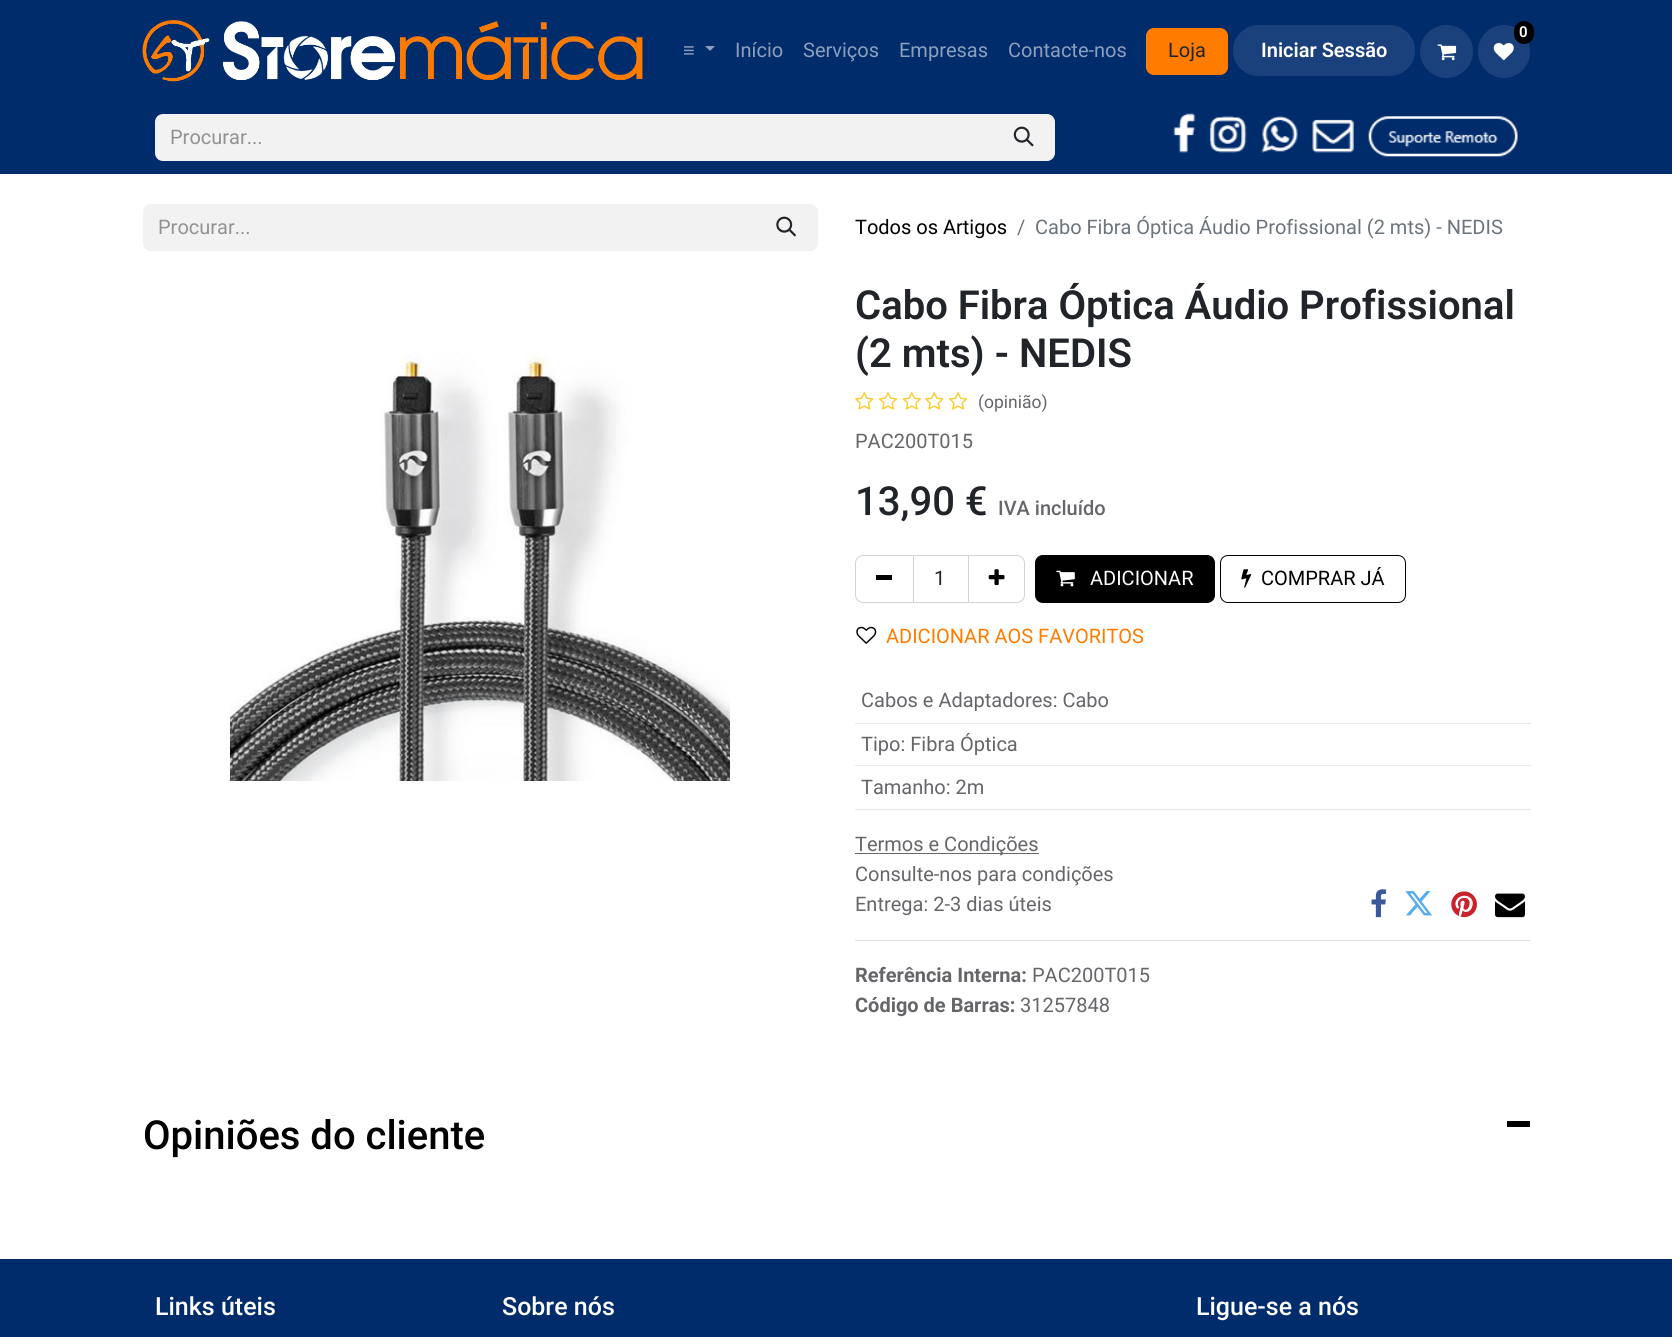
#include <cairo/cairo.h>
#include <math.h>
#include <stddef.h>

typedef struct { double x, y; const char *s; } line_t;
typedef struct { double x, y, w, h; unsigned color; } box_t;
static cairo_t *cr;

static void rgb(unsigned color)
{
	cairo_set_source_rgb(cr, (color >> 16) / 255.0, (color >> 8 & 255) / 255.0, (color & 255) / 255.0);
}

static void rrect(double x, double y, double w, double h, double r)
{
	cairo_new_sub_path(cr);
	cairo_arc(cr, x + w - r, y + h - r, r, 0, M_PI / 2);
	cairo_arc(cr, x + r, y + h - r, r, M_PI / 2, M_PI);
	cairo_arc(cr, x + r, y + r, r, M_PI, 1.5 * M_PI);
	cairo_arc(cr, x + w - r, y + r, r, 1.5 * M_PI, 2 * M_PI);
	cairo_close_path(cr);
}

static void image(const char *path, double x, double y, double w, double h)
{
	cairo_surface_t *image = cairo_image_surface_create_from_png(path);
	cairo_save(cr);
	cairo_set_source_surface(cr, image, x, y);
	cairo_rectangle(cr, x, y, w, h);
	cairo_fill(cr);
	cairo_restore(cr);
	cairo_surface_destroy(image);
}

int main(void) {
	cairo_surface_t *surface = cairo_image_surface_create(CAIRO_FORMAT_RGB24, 1672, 1337);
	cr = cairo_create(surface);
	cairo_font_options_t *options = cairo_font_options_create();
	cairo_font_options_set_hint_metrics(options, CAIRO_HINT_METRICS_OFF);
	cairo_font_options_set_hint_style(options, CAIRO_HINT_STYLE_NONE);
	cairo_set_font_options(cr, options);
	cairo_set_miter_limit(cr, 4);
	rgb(0xffffff);
	cairo_paint(cr);
	rgb(0x002c6c);
	cairo_rectangle(cr, 0, 0, 1672, 174);
	cairo_fill(cr);
	image("img/1.png", 142, 20, 501, 62);
	rgb(0x8ca0bd);
	cairo_new_path(cr);
	cairo_move_to(cr, 705, 46);
	cairo_line_to(cr, 715, 46);
	cairo_line_to(cr, 710, 51);
	cairo_close_path(cr);
	cairo_fill(cr);
	rgb(0x1a417b);
	cairo_arc(cr, 1446.5, 51.5, 26.5, 0, 2 * M_PI);
	cairo_fill(cr);
	image("img/2.png", 1437, 44, 20, 17);
	rrect(1478, 25, 52, 53, 26);
	cairo_fill(cr);
	rgb(0x000000);
	rrect(1514, 21, 20, 23, 10);
	cairo_fill(cr);
	image("img/3.png", 1493, 43, 21, 18);
	rgb(0xff7c00);
	rrect(1146.5, 28.5, 81, 46, 7.5);
	cairo_fill_preserve(cr);
	cairo_set_line_width(cr, 1);
	cairo_stroke(cr);
	rgb(0x1a417b);
	rrect(1233, 25, 182, 51, 25.5);
	cairo_fill(cr);
	rgb(0xf2f2f3);
	cairo_new_path(cr);
	cairo_move_to(cr, 163, 114);
	cairo_line_to(cr, 994, 114);
	cairo_line_to(cr, 994, 161);
	cairo_line_to(cr, 163, 161);
	cairo_curve_to(cr, 158.5, 161, 155, 157.5, 155, 153);
	cairo_line_to(cr, 155, 122);
	cairo_curve_to(cr, 155, 117.5, 158.5, 114, 163, 114);
	cairo_close_path(cr);
	cairo_fill(cr);
	cairo_new_path(cr);
	cairo_move_to(cr, 993.5, 114.5);
	cairo_line_to(cr, 1047, 114.5);
	cairo_curve_to(cr, 1051, 114.5, 1054.5, 118, 1054.5, 122);
	cairo_line_to(cr, 1054.5, 153);
	cairo_curve_to(cr, 1054.5, 157, 1051, 160.5, 1047, 160.5);
	cairo_line_to(cr, 993.5, 160.5);
	cairo_close_path(cr);
	cairo_fill_preserve(cr);
	cairo_stroke(cr);
	image("img/4.png", 1013, 126, 21, 21);
	image("img/5.png", 1173, 113, 23, 40);
	image("img/6.png", 1209, 116, 38, 37);
	image("img/7.png", 1261, 116, 37, 37);
	image("img/8.png", 1312, 119, 42, 34);
	image("img/9.png", 1368, 116, 150, 41);
	cairo_new_path(cr);
	cairo_move_to(cr, 151, 204);
	cairo_line_to(cr, 756, 204);
	cairo_line_to(cr, 756, 251);
	cairo_line_to(cr, 151, 251);
	cairo_curve_to(cr, 146.5, 251, 143, 247.5, 143, 243);
	cairo_line_to(cr, 143, 212);
	cairo_curve_to(cr, 143, 207.5, 146.5, 204, 151, 204);
	cairo_close_path(cr);
	cairo_fill(cr);
	cairo_new_path(cr);
	cairo_move_to(cr, 755.5, 204.5);
	cairo_line_to(cr, 810, 204.5);
	cairo_curve_to(cr, 814, 204.5, 817.5, 208, 817.5, 212);
	cairo_line_to(cr, 817.5, 243);
	cairo_curve_to(cr, 817.5, 247, 814, 250.5, 810, 250.5);
	cairo_line_to(cr, 755.5, 250.5);
	cairo_close_path(cr);
	cairo_fill_preserve(cr);
	cairo_stroke(cr);
	image("img/10.png", 776, 216, 21, 21);
	image("img/11.png", 230, 351, 500, 430);
	image("img/12.png", 855, 392, 19, 18);
	image("img/13.png", 878, 392, 20, 18);
	image("img/14.png", 902, 392, 19, 18);
	image("img/12.png", 925, 392, 19, 18);
	image("img/13.png", 948, 392, 20, 18);
	cairo_rectangle(cr, 913.5, 555.5, 55, 47);
	rgb(0xced4da);
	cairo_stroke(cr);
	cairo_new_path(cr);
	cairo_move_to(cr, 863, 555.5);
	cairo_line_to(cr, 913.5, 555.5);
	cairo_line_to(cr, 913.5, 602.5);
	cairo_line_to(cr, 863, 602.5);
	cairo_curve_to(cr, 859, 602.5, 855.5, 599, 855.5, 595);
	cairo_line_to(cr, 855.5, 563);
	cairo_curve_to(cr, 855.5, 559, 859, 555.5, 863, 555.5);
	cairo_close_path(cr);
	cairo_stroke(cr);
	rgb(0x000000);
	cairo_rectangle(cr, 876, 575, 16, 5);
	cairo_fill(cr);
	cairo_new_path(cr);
	cairo_move_to(cr, 968.5, 555.5);
	cairo_line_to(cr, 1017, 555.5);
	cairo_curve_to(cr, 1021, 555.5, 1024.5, 559, 1024.5, 563);
	cairo_line_to(cr, 1024.5, 595);
	cairo_curve_to(cr, 1024.5, 599, 1021, 602.5, 1017, 602.5);
	cairo_line_to(cr, 968.5, 602.5);
	cairo_close_path(cr);
	rgb(0xced4da);
	cairo_stroke(cr);
	image("img/15.png", 988, 569, 17, 16);
	rgb(0x000000);
	rrect(1035.5, 555.5, 179, 47, 7.5);
	cairo_fill_preserve(cr);
	cairo_stroke(cr);
	image("img/16.png", 1056, 570, 19, 17);
	rrect(1220.5, 555.5, 185, 47, 7.5);
	cairo_stroke(cr);
	image("img/17.png", 1241, 569, 11, 19);
	image("img/18.png", 856, 626, 21, 18);
	{
		static const box_t items[] = {
			{855, 723, 676, 1, 0xe8e8e8},
			{855, 765, 676, 1, 0xe8e8e8},
			{855, 809, 676, 1, 0xe8e8e8},
			{855, 853, 184, 1, 0x646669},
		};
		for (size_t i = 0; i < sizeof items / sizeof *items; i++) {
			rgb(items[i].color);
			cairo_rectangle(cr, items[i].x, items[i].y, items[i].w, items[i].h);
			cairo_fill(cr);
		}
	}
	image("img/19.png", 1371, 889, 16, 29);
	image("img/20.png", 1405, 891, 27, 25);
	image("img/21.png", 1451, 891, 26, 27);
	image("img/22.png", 1495, 893, 30, 25);
	{
		static const box_t items[] = {
			{855, 940, 675, 1, 0xdededf},
			{1507, 1121, 23, 6, 0x000000},
			{0, 1259, 1672, 78, 0x002c6c},
		};
		for (size_t i = 0; i < sizeof items / sizeof *items; i++) {
			rgb(items[i].color);
			cairo_rectangle(cr, items[i].x, items[i].y, items[i].w, items[i].h);
			cairo_fill(cr);
		}
	}
	cairo_select_font_face(cr, "Liberation Sans", CAIRO_FONT_SLANT_NORMAL, CAIRO_FONT_WEIGHT_NORMAL);
	cairo_set_font_size(cr, 20);
	rgb(0x8ca0bd);
	cairo_move_to(cr, 683, 57);
	cairo_show_text(cr, "≡");
	cairo_select_font_face(cr, "Roboto", CAIRO_FONT_SLANT_NORMAL, CAIRO_FONT_WEIGHT_NORMAL);
	{
		static const line_t items[] = {
			{735, 57, "Início"},
			{803, 57, "Serviços"},
			{899, 57, "Empresas"},
			{1008, 57, "Contacte-nos"},
		};
		for (size_t i = 0; i < sizeof items / sizeof *items; i++) {
			cairo_move_to(cr, items[i].x, items[i].y);
			cairo_show_text(cr, items[i].s);
		}
	}
	cairo_select_font_face(cr, "Roboto SemiBold", CAIRO_FONT_SLANT_NORMAL, CAIRO_FONT_WEIGHT_NORMAL);
	cairo_set_font_size(cr, 15);
	rgb(0xffffff);
	cairo_move_to(cr, 1519, 37);
	cairo_show_text(cr, "0");
	cairo_select_font_face(cr, "Roboto", CAIRO_FONT_SLANT_NORMAL, CAIRO_FONT_WEIGHT_NORMAL);
	cairo_set_font_size(cr, 20);
	rgb(0x212529);
	cairo_move_to(cr, 1168, 57);
	cairo_show_text(cr, "Loja");
	cairo_select_font_face(cr, "Roboto SemiBold", CAIRO_FONT_SLANT_NORMAL, CAIRO_FONT_WEIGHT_NORMAL);
	rgb(0xffffff);
	cairo_move_to(cr, 1261, 57);
	cairo_show_text(cr, "Iniciar Sessão");
	cairo_select_font_face(cr, "Roboto", CAIRO_FONT_SLANT_NORMAL, CAIRO_FONT_WEIGHT_NORMAL);
	rgb(0x909294);
	cairo_move_to(cr, 170, 144);
	cairo_show_text(cr, "Procurar...");
	cairo_move_to(cr, 158, 234);
	cairo_show_text(cr, "Procurar...");
	rgb(0x000000);
	cairo_move_to(cr, 855, 234);
	cairo_show_text(cr, "Todos os Artigos");
	rgb(0x6c757d);
	cairo_move_to(cr, 1017, 234);
	cairo_show_text(cr, "/");
	cairo_move_to(cr, 1035, 234);
	cairo_show_text(cr, "Cabo Fibra Óptica Áudio Profissional (2 mts) - NEDIS");
	cairo_select_font_face(cr, "Roboto SemiBold", CAIRO_FONT_SLANT_NORMAL, CAIRO_FONT_WEIGHT_NORMAL);
	cairo_set_font_size(cr, 40);
	rgb(0x212529);
	cairo_move_to(cr, 855, 319);
	cairo_show_text(cr, "Cabo Fibra Óptica Áudio Profissional");
	cairo_move_to(cr, 855, 367);
	cairo_show_text(cr, "(2 mts) - NEDIS");
	cairo_select_font_face(cr, "Roboto", CAIRO_FONT_SLANT_NORMAL, CAIRO_FONT_WEIGHT_NORMAL);
	cairo_set_font_size(cr, 17.5);
	rgb(0x646669);
	cairo_move_to(cr, 978, 408);
	cairo_show_text(cr, "(opinião)");
	cairo_set_font_size(cr, 20);
	cairo_move_to(cr, 855, 448);
	cairo_show_text(cr, "PAC200T015");
	cairo_select_font_face(cr, "Roboto Medium", CAIRO_FONT_SLANT_NORMAL, CAIRO_FONT_WEIGHT_NORMAL);
	cairo_set_font_size(cr, 40);
	rgb(0x212529);
	cairo_move_to(cr, 855, 515);
	cairo_show_text(cr, "13,90 €");
	cairo_set_font_size(cr, 20);
	rgb(0x646669);
	cairo_move_to(cr, 998, 515);
	cairo_show_text(cr, "IVA incluído");
	cairo_select_font_face(cr, "Roboto", CAIRO_FONT_SLANT_NORMAL, CAIRO_FONT_WEIGHT_NORMAL);
	rgb(0x212529);
	cairo_move_to(cr, 934, 585);
	cairo_show_text(cr, "1");
	rgb(0xffffff);
	cairo_move_to(cr, 1090, 585);
	cairo_show_text(cr, "ADICIONAR");
	rgb(0x000000);
	cairo_move_to(cr, 1261, 585);
	cairo_show_text(cr, "COMPRAR JÁ");
	rgb(0xff7c00);
	cairo_move_to(cr, 886, 643);
	cairo_show_text(cr, "ADICIONAR AOS FAVORITOS");
	rgb(0x646669);
	{
		static const line_t items[] = {
			{861, 707, "Cabos e Adaptadores: Cabo"},
			{861, 751, "Tipo: Fibra Óptica"},
			{861, 794, "Tamanho: 2m"},
			{855, 851, "Termos e Condições"},
			{855, 881, "Consulte-nos para condições"},
			{855, 911, "Entrega: 2-3 dias úteis"},
		};
		for (size_t i = 0; i < sizeof items / sizeof *items; i++) {
			cairo_move_to(cr, items[i].x, items[i].y);
			cairo_show_text(cr, items[i].s);
		}
	}
	cairo_select_font_face(cr, "Roboto", CAIRO_FONT_SLANT_NORMAL, CAIRO_FONT_WEIGHT_BOLD);
	cairo_move_to(cr, 855, 982);
	cairo_show_text(cr, "Referência Interna:");
	cairo_select_font_face(cr, "Roboto", CAIRO_FONT_SLANT_NORMAL, CAIRO_FONT_WEIGHT_NORMAL);
	cairo_move_to(cr, 1032, 982);
	cairo_show_text(cr, "PAC200T015");
	cairo_select_font_face(cr, "Roboto", CAIRO_FONT_SLANT_NORMAL, CAIRO_FONT_WEIGHT_BOLD);
	cairo_move_to(cr, 855, 1012);
	cairo_show_text(cr, "Código de Barras:");
	cairo_select_font_face(cr, "Roboto", CAIRO_FONT_SLANT_NORMAL, CAIRO_FONT_WEIGHT_NORMAL);
	cairo_move_to(cr, 1020, 1012);
	cairo_show_text(cr, "31257848");
	cairo_select_font_face(cr, "Roboto Medium", CAIRO_FONT_SLANT_NORMAL, CAIRO_FONT_WEIGHT_NORMAL);
	cairo_set_font_size(cr, 40);
	rgb(0x000000);
	cairo_move_to(cr, 143, 1149);
	cairo_show_text(cr, "Opiniões do cliente");
	cairo_set_font_size(cr, 25);
	rgb(0xffffff);
	{
		static const line_t items[] = {
			{155, 1315, "Links úteis"},
			{502, 1315, "Sobre nós"},
			{1196, 1315, "Ligue-se a nós"},
		};
		for (size_t i = 0; i < sizeof items / sizeof *items; i++) {
			cairo_move_to(cr, items[i].x, items[i].y);
			cairo_show_text(cr, items[i].s);
		}
	}
	cairo_surface_write_to_png(surface, "page.png");
	cairo_font_options_destroy(options);
	cairo_destroy(cr);
	cairo_surface_destroy(surface);
	return 0;
}
